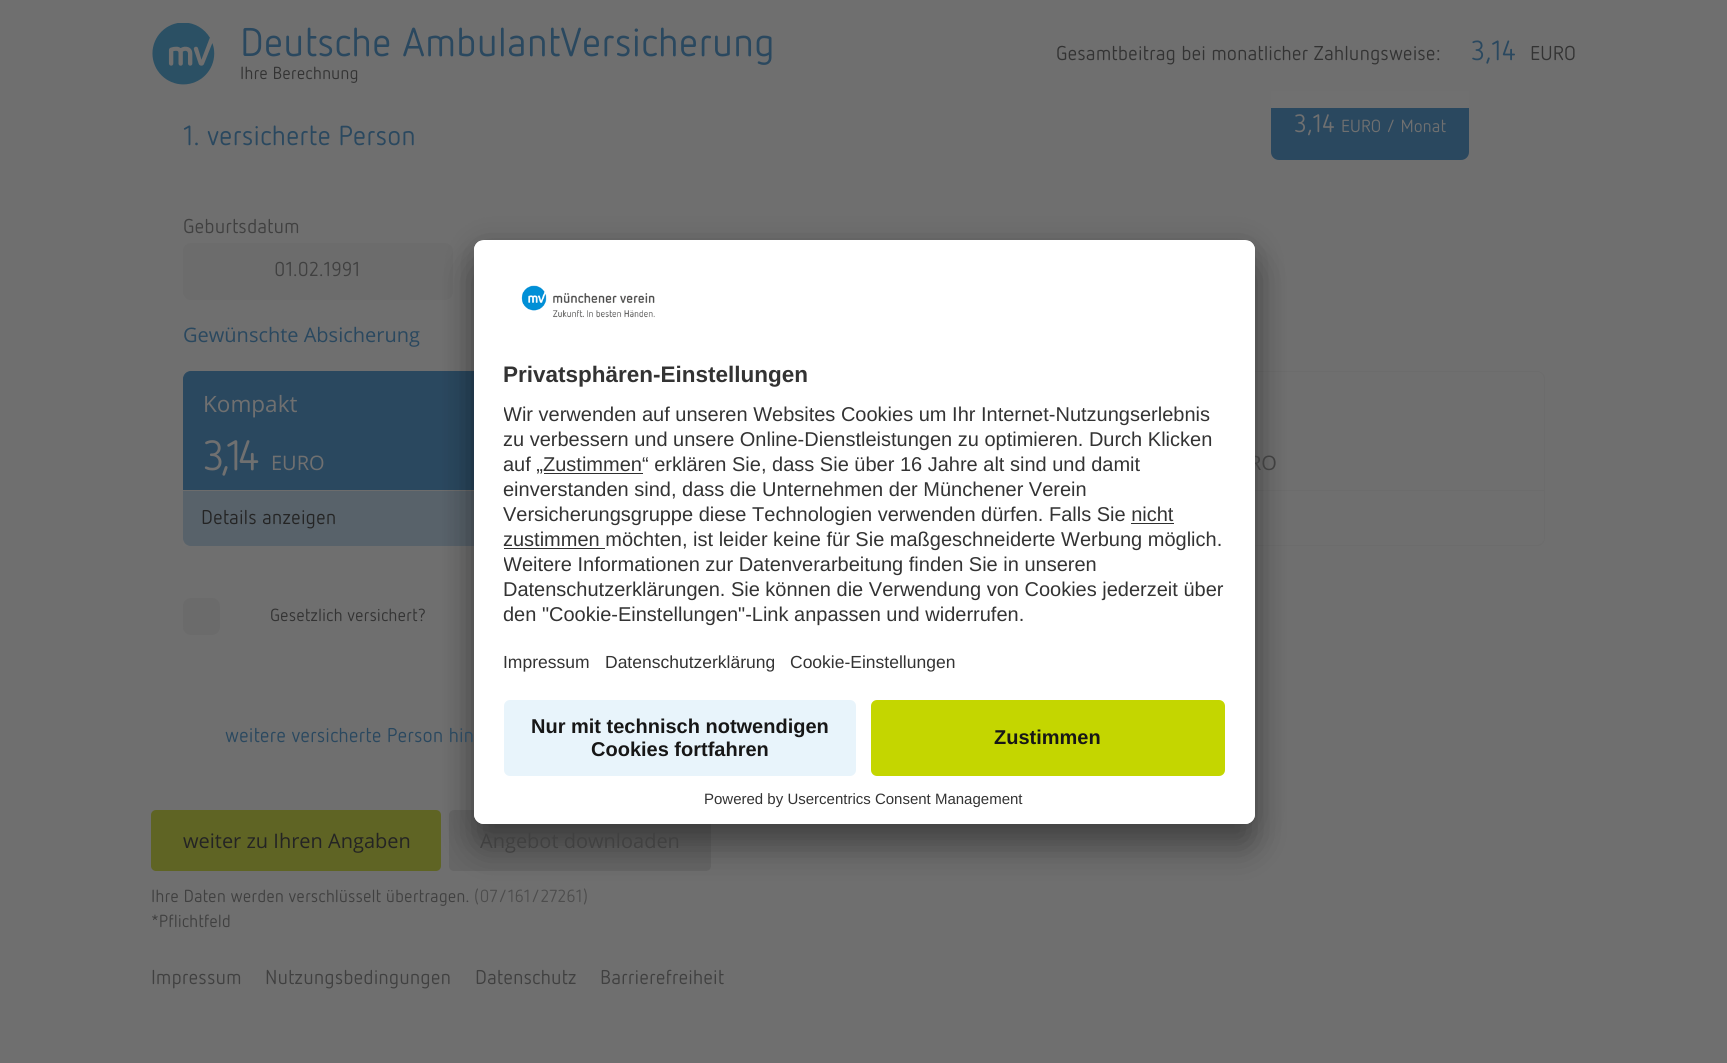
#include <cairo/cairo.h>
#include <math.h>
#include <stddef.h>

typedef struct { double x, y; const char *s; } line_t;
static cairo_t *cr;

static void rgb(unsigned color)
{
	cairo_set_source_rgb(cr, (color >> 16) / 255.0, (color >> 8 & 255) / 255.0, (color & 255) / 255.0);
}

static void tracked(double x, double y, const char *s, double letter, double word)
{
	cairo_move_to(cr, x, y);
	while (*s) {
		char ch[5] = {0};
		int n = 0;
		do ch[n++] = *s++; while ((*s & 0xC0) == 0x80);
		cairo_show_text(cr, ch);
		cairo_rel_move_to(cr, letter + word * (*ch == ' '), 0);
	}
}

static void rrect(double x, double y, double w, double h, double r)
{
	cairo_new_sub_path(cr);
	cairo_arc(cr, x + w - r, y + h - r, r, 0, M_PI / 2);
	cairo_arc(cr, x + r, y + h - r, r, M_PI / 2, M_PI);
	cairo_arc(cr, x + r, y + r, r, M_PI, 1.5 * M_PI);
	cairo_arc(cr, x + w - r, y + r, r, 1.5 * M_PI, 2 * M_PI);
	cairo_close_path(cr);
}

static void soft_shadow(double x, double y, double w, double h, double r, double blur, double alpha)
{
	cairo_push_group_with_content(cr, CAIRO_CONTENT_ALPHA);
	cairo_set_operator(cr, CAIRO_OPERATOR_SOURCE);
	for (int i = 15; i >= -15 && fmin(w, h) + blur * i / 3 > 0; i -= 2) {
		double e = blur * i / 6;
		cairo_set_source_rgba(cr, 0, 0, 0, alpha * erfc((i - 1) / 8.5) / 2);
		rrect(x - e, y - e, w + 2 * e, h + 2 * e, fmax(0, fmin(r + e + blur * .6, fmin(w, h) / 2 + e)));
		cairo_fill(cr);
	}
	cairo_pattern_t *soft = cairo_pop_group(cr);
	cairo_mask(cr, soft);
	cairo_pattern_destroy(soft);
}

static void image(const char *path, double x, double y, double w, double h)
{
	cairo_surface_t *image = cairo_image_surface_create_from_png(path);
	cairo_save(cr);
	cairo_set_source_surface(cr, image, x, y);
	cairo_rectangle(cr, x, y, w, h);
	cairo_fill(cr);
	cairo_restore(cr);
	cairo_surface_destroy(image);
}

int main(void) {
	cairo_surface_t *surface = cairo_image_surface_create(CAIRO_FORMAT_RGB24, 1727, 1063);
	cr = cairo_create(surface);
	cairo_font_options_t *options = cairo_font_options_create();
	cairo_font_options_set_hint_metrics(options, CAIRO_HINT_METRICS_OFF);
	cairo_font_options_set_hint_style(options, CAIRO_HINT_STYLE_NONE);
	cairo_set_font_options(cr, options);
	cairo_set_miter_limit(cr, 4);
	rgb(0x6f6f6f);
	cairo_paint(cr);
	rgb(0x2a485f);
	cairo_new_path(cr);
	cairo_move_to(cr, 1271, 91);
	cairo_line_to(cr, 1469, 91);
	cairo_line_to(cr, 1469, 152);
	cairo_curve_to(cr, 1469, 156.5, 1465.5, 160, 1461, 160);
	cairo_line_to(cr, 1279, 160);
	cairo_curve_to(cr, 1274.5, 160, 1271, 156.5, 1271, 152);
	cairo_close_path(cr);
	cairo_fill(cr);
	rgb(0x707070);
	cairo_rectangle(cr, 1271, 91, 198, 17);
	cairo_fill(cr);
	image("img/1.png", 152, 23, 63, 62);
	rgb(0x6c6c6c);
	rrect(183, 243, 270, 57, 8);
	cairo_fill(cr);
	rgb(0x2a485f);
	rrect(183.5, 371.5, 436, 174, 7.5);
	cairo_fill_preserve(cr);
	cairo_set_line_width(cr, 1);
	cairo_stroke(cr);
	cairo_set_source_rgba(cr, 0.439, 0.439, 0.439, 0.65);
	cairo_rectangle(cr, 183, 491, 291, 55);
	cairo_fill(cr);
	rgb(0x6c6c6c);
	cairo_rectangle(cr, 183, 490, 291, 1);
	cairo_fill(cr);
	rrect(1108.5, 371.5, 436, 174, 7.5);
	cairo_stroke(cr);
	cairo_rectangle(cr, 1255, 490, 290, 1);
	cairo_fill(cr);
	rgb(0x6b6b6b);
	rrect(183, 598, 37, 37, 8);
	cairo_fill(cr);
	rgb(0x5f6424);
	rrect(151, 810, 290, 61, 5);
	cairo_fill(cr);
	rgb(0x666666);
	rrect(449, 810, 262, 61, 5);
	cairo_fill(cr);
	rgb(0x000000);
	soft_shadow(474, 265, 781, 584, 10, 17.5, 0.3);
	soft_shadow(474, 246, 781, 584, 10, 16, 0.22);
	cairo_select_font_face(cr, "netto", CAIRO_FONT_SLANT_NORMAL, CAIRO_FONT_WEIGHT_NORMAL);
	cairo_set_font_size(cr, 40);
	rgb(0x2a485f);
	cairo_move_to(cr, 240, 56);
	cairo_show_text(cr, "Deutsche AmbulantVersicherung");
	cairo_set_font_size(cr, 17.5);
	rgb(0x333333);
	cairo_move_to(cr, 240, 79);
	cairo_show_text(cr, "Ihre Berechnung");
	cairo_set_font_size(cr, 20);
	cairo_move_to(cr, 1056, 60);
	cairo_show_text(cr, "Gesamtbeitrag bei monatlicher Zahlungsweise:");
	cairo_set_font_size(cr, 27.5);
	rgb(0x2a485f);
	cairo_move_to(cr, 1471, 60);
	cairo_show_text(cr, "3,14");
	cairo_set_font_size(cr, 20);
	rgb(0x333333);
	cairo_move_to(cr, 1530, 60);
	cairo_show_text(cr, "EURO");
	cairo_set_font_size(cr, 27.5);
	rgb(0x2a485f);
	cairo_move_to(cr, 183, 145);
	cairo_show_text(cr, "1. versicherte Person");
	cairo_set_font_size(cr, 25);
	rgb(0x707070);
	cairo_move_to(cr, 1294, 132);
	cairo_show_text(cr, "3,14");
	cairo_set_font_size(cr, 17.5);
	cairo_move_to(cr, 1341, 132);
	cairo_show_text(cr, "EURO / Monat");
	cairo_set_font_size(cr, 20);
	rgb(0x404040);
	cairo_move_to(cr, 183, 233);
	cairo_show_text(cr, "Geburtsdatum");
	cairo_move_to(cr, 274, 276);
	cairo_show_text(cr, "01.02.1991");
	cairo_select_font_face(cr, "Open Sans", CAIRO_FONT_SLANT_NORMAL, CAIRO_FONT_WEIGHT_NORMAL);
	rgb(0x2a485f);
	cairo_move_to(cr, 183, 342);
	cairo_show_text(cr, "Gewünschte Absicherung");
	cairo_set_font_size(cr, 22.5);
	rgb(0x707070);
	cairo_move_to(cr, 203, 412);
	cairo_show_text(cr, "Kompakt");
	cairo_select_font_face(cr, "netto", CAIRO_FONT_SLANT_NORMAL, CAIRO_FONT_WEIGHT_NORMAL);
	cairo_set_font_size(cr, 42);
	tracked(203, 470, "3,14", -4, 0);
	cairo_select_font_face(cr, "Open Sans", CAIRO_FONT_SLANT_NORMAL, CAIRO_FONT_WEIGHT_NORMAL);
	cairo_set_font_size(cr, 20);
	cairo_move_to(cr, 271, 470);
	cairo_show_text(cr, "EURO");
	cairo_select_font_face(cr, "netto", CAIRO_FONT_SLANT_NORMAL, CAIRO_FONT_WEIGHT_NORMAL);
	rgb(0x242424);
	cairo_move_to(cr, 201, 524);
	cairo_show_text(cr, "Details anzeigen");
	cairo_select_font_face(cr, "Open Sans", CAIRO_FONT_SLANT_NORMAL, CAIRO_FONT_WEIGHT_NORMAL);
	rgb(0x404040);
	cairo_move_to(cr, 1249, 470);
	cairo_show_text(cr, "RO");
	cairo_select_font_face(cr, "netto", CAIRO_FONT_SLANT_NORMAL, CAIRO_FONT_WEIGHT_NORMAL);
	cairo_set_font_size(cr, 17.5);
	rgb(0x333333);
	cairo_move_to(cr, 270, 621);
	cairo_show_text(cr, "Gesetzlich versichert?");
	cairo_set_font_size(cr, 20);
	rgb(0x2a485f);
	cairo_move_to(cr, 225, 742);
	cairo_show_text(cr, "weitere versicherte Person hin");
	cairo_select_font_face(cr, "Open Sans", CAIRO_FONT_SLANT_NORMAL, CAIRO_FONT_WEIGHT_NORMAL);
	rgb(0x242424);
	cairo_move_to(cr, 183, 848);
	cairo_show_text(cr, "weiter zu Ihren Angaben");
	rgb(0x404040);
	cairo_move_to(cr, 480, 848);
	cairo_show_text(cr, "Angebot downloaden");
	cairo_select_font_face(cr, "netto", CAIRO_FONT_SLANT_NORMAL, CAIRO_FONT_WEIGHT_NORMAL);
	cairo_set_font_size(cr, 17.5);
	cairo_move_to(cr, 151, 902);
	cairo_show_text(cr, "Ihre Daten werden verschlüsselt übertragen.");
	rgb(0x4d4d4d);
	cairo_move_to(cr, 474, 902);
	cairo_show_text(cr, "(07/161/27261)");
	rgb(0x404040);
	cairo_move_to(cr, 151, 927);
	cairo_show_text(cr, "*Pflichtfeld");
	cairo_set_font_size(cr, 20);
	{
		static const line_t items[] = {
			{151, 984, "Impressum"},
			{265, 984, "Nutzungsbedingungen"},
			{475, 984, "Datenschutz"},
			{600, 984, "Barrierefreiheit"},
		};
		for (size_t i = 0; i < sizeof items / sizeof *items; i++) {
			cairo_move_to(cr, items[i].x, items[i].y);
			cairo_show_text(cr, items[i].s);
		}
	}
	rgb(0xffffff);
	rrect(474, 240, 781, 584, 10);
	cairo_fill(cr);
	cairo_save(cr);
	rrect(474, 240, 781, 584, 10);
	cairo_clip(cr);
	cairo_new_path(cr);
	cairo_move_to(cr, 484, 240);
	cairo_line_to(cr, 1245, 240);
	cairo_curve_to(cr, 1250.5, 240, 1255, 244.5, 1255, 250);
	cairo_line_to(cr, 1255, 690);
	cairo_line_to(cr, 474, 690);
	cairo_line_to(cr, 474, 250);
	cairo_curve_to(cr, 474, 244.5, 478.5, 240, 484, 240);
	cairo_close_path(cr);
	cairo_clip(cr);
	cairo_rectangle(cr, 474, 241, 781, 449);
	cairo_fill(cr);
	cairo_restore(cr);
	image("img/2.png", 521, 285, 134, 33);
	cairo_select_font_face(cr, "Liberation Sans", CAIRO_FONT_SLANT_NORMAL, CAIRO_FONT_WEIGHT_BOLD);
	cairo_set_font_size(cr, 22.5);
	rgb(0x333333);
	cairo_move_to(cr, 503, 382);
	cairo_show_text(cr, "Privatsphären-Einstellungen");
	cairo_save(cr);
	cairo_rectangle(cr, 504, 398, 721, 235);
	cairo_clip(cr);
	cairo_select_font_face(cr, "Liberation Sans", CAIRO_FONT_SLANT_NORMAL, CAIRO_FONT_WEIGHT_NORMAL);
	cairo_set_font_size(cr, 20);
	cairo_move_to(cr, 503, 421);
	cairo_show_text(cr, "Wir verwenden auf unseren Websites Cookies um Ihr Internet-Nutzungserlebnis");
	cairo_restore(cr);
	cairo_select_font_face(cr, "Liberation Sans", CAIRO_FONT_SLANT_NORMAL, CAIRO_FONT_WEIGHT_NORMAL);
	cairo_set_font_size(cr, 20);
	cairo_move_to(cr, 503, 446);
	cairo_show_text(cr, "zu verbessern und unsere Online-Dienstleistungen zu optimieren. Durch Klicken");
	cairo_move_to(cr, 503, 471);
	cairo_show_text(cr, "auf „Zustimmen");
	rgb(0x303030);
	cairo_rectangle(cr, 544, 473, 99, 1);
	cairo_fill(cr);
	rgb(0x333333);
	{
		static const line_t items[] = {
			{642, 471, "“ erklären Sie, dass Sie über 16 Jahre alt sind und damit"},
			{503, 496, "einverstanden sind, dass die Unternehmen der Münchener Verein"},
			{503, 521, "Versicherungsgruppe diese Technologien verwenden dürfen. Falls Sie nicht"},
		};
		for (size_t i = 0; i < sizeof items / sizeof *items; i++) {
			cairo_move_to(cr, items[i].x, items[i].y);
			cairo_show_text(cr, items[i].s);
		}
	}
	rgb(0x303030);
	cairo_rectangle(cr, 1131, 523, 43, 1);
	cairo_fill(cr);
	cairo_rectangle(cr, 504, 548, 101, 1);
	cairo_fill(cr);
	rgb(0x333333);
	cairo_move_to(cr, 503, 546);
	cairo_show_text(cr, "zustimmen möchten, ist leider keine für Sie maßgeschneiderte Werbung möglich.");
	cairo_save(cr);
	cairo_rectangle(cr, 504, 398, 721, 235);
	cairo_clip(cr);
	cairo_move_to(cr, 503, 571);
	cairo_show_text(cr, "Weitere Informationen zur Datenverarbeitung finden Sie in unseren");
	cairo_restore(cr);
	cairo_move_to(cr, 503, 596);
	cairo_show_text(cr, "Datenschutzerklärungen. Sie können die Verwendung von Cookies jederzeit über");
	cairo_move_to(cr, 503, 621);
	cairo_show_text(cr, "den \"Cookie-Einstellungen\"-Link anpassen und widerrufen.");
	cairo_set_font_size(cr, 17.5);
	{
		static const line_t items[] = {
			{503, 668, "Impressum"},
			{605, 668, "Datenschutzerklärung"},
			{790, 668, "Cookie-Einstellungen"},
		};
		for (size_t i = 0; i < sizeof items / sizeof *items; i++) {
			cairo_move_to(cr, items[i].x, items[i].y);
			cairo_show_text(cr, items[i].s);
		}
	}
	rgb(0xffffff);
	cairo_new_path(cr);
	cairo_move_to(cr, 474, 690);
	cairo_line_to(cr, 1255, 690);
	cairo_line_to(cr, 1255, 814);
	cairo_curve_to(cr, 1255, 819.5, 1250.5, 824, 1245, 824);
	cairo_line_to(cr, 484, 824);
	cairo_curve_to(cr, 478.5, 824, 474, 819.5, 474, 814);
	cairo_close_path(cr);
	cairo_fill(cr);
	rgb(0xe8f4fb);
	rrect(504, 700, 352, 76, 6);
	cairo_fill(cr);
	cairo_select_font_face(cr, "Liberation Sans", CAIRO_FONT_SLANT_NORMAL, CAIRO_FONT_WEIGHT_BOLD);
	cairo_set_font_size(cr, 20);
	rgb(0x171717);
	cairo_move_to(cr, 531, 733);
	cairo_show_text(cr, "Nur mit technisch notwendigen");
	cairo_move_to(cr, 591, 756);
	cairo_show_text(cr, "Cookies fortfahren");
	rgb(0xc4d600);
	rrect(871, 700, 354, 76, 6);
	cairo_fill(cr);
	rgb(0x171717);
	cairo_move_to(cr, 994, 744);
	cairo_show_text(cr, "Zustimmen");
	cairo_select_font_face(cr, "Liberation Sans", CAIRO_FONT_SLANT_NORMAL, CAIRO_FONT_WEIGHT_NORMAL);
	cairo_set_font_size(cr, 15);
	rgb(0x333333);
	cairo_move_to(cr, 704, 804);
	cairo_show_text(cr, "Powered by Usercentrics Consent Management");
	cairo_surface_write_to_png(surface, "page.png");
	cairo_font_options_destroy(options);
	cairo_destroy(cr);
	cairo_surface_destroy(surface);
	return 0;
}
